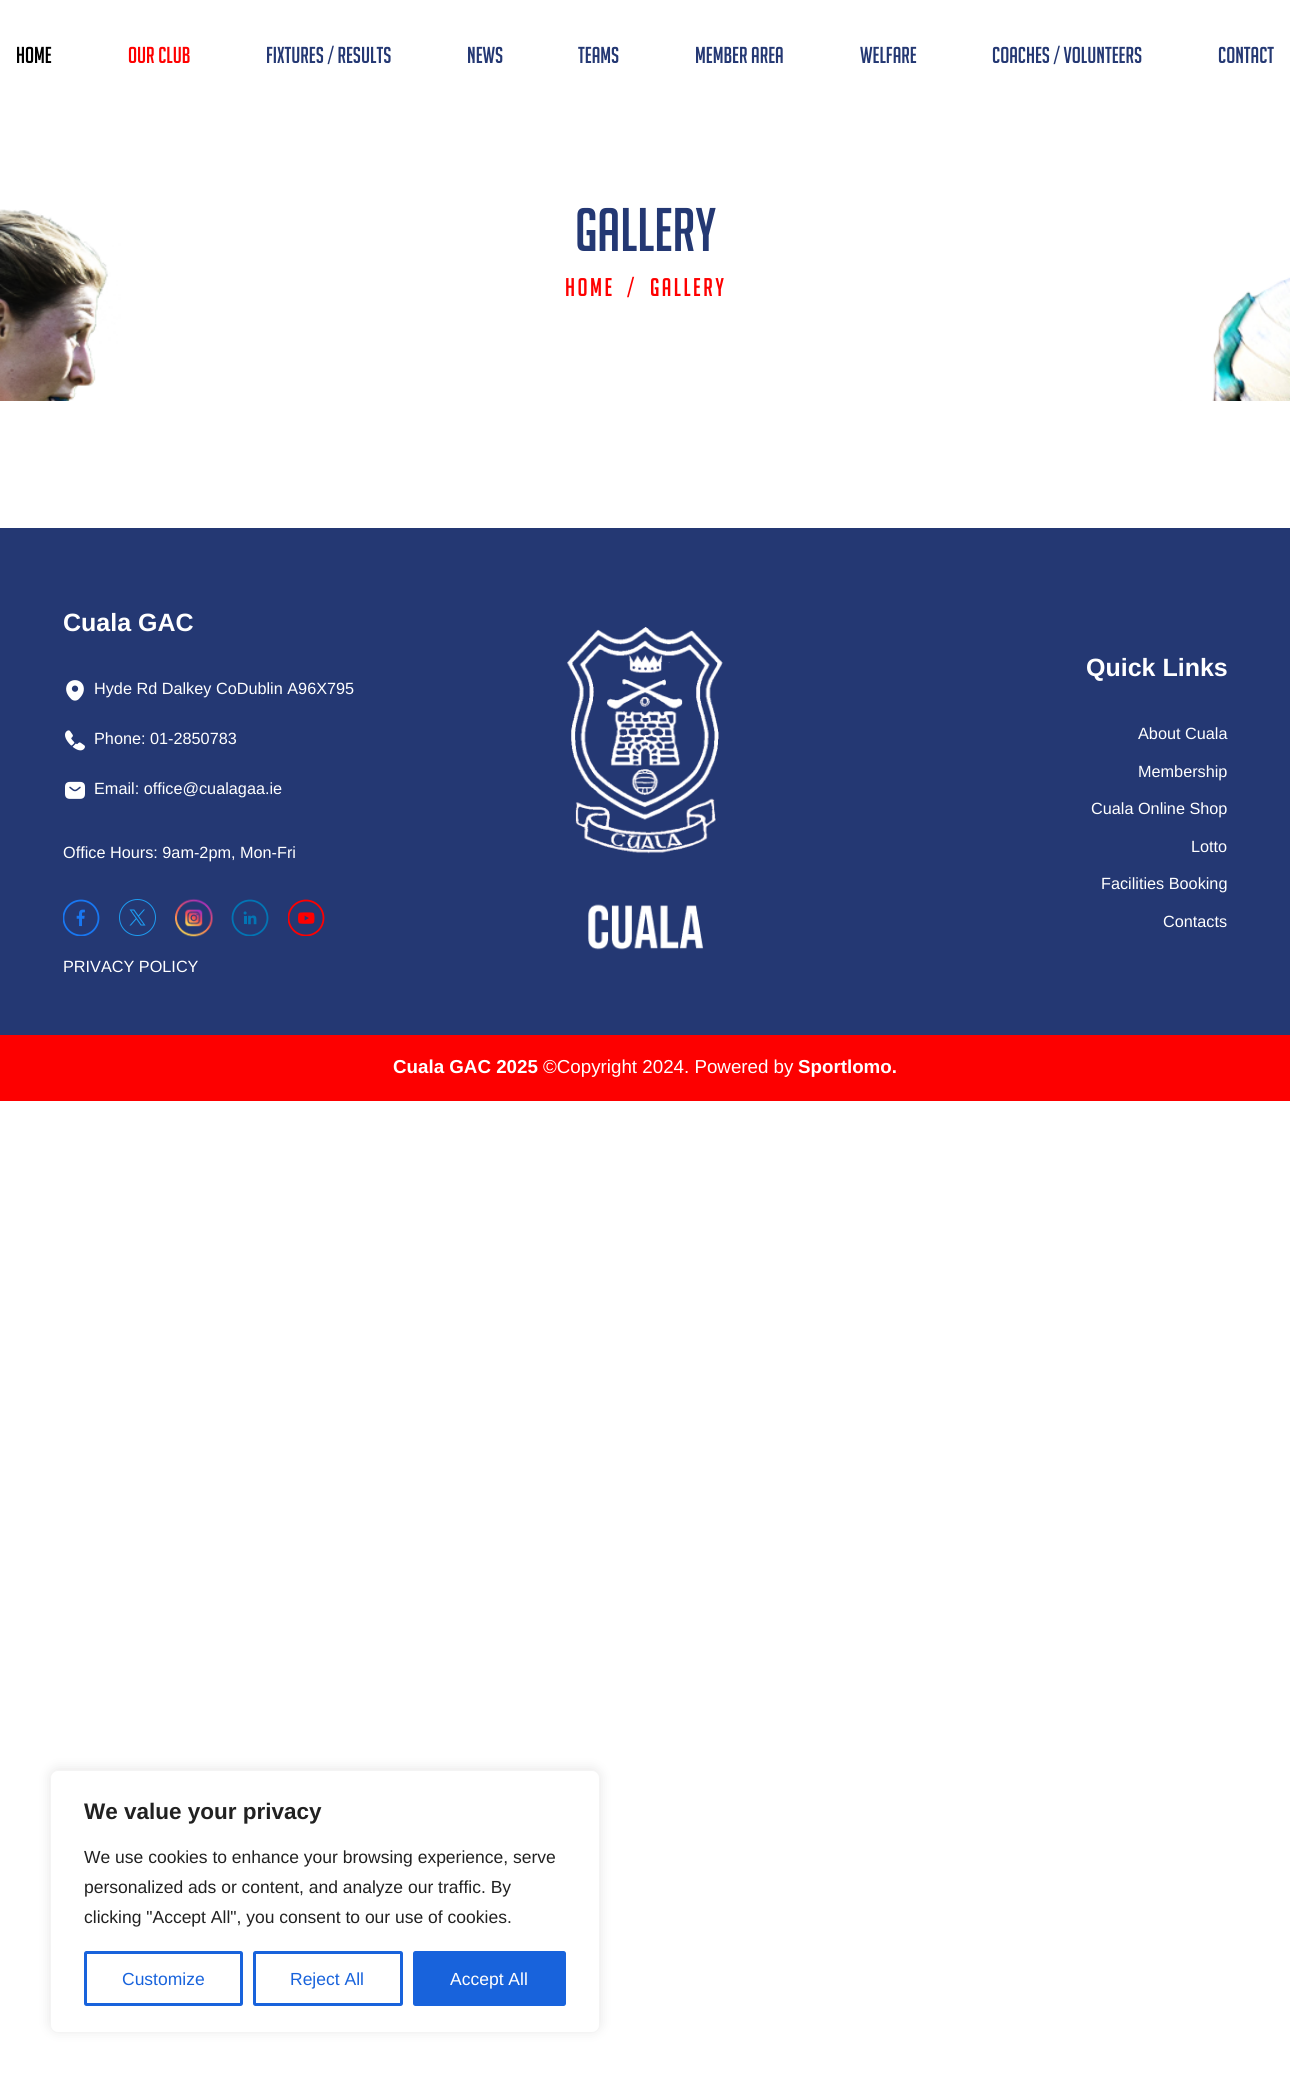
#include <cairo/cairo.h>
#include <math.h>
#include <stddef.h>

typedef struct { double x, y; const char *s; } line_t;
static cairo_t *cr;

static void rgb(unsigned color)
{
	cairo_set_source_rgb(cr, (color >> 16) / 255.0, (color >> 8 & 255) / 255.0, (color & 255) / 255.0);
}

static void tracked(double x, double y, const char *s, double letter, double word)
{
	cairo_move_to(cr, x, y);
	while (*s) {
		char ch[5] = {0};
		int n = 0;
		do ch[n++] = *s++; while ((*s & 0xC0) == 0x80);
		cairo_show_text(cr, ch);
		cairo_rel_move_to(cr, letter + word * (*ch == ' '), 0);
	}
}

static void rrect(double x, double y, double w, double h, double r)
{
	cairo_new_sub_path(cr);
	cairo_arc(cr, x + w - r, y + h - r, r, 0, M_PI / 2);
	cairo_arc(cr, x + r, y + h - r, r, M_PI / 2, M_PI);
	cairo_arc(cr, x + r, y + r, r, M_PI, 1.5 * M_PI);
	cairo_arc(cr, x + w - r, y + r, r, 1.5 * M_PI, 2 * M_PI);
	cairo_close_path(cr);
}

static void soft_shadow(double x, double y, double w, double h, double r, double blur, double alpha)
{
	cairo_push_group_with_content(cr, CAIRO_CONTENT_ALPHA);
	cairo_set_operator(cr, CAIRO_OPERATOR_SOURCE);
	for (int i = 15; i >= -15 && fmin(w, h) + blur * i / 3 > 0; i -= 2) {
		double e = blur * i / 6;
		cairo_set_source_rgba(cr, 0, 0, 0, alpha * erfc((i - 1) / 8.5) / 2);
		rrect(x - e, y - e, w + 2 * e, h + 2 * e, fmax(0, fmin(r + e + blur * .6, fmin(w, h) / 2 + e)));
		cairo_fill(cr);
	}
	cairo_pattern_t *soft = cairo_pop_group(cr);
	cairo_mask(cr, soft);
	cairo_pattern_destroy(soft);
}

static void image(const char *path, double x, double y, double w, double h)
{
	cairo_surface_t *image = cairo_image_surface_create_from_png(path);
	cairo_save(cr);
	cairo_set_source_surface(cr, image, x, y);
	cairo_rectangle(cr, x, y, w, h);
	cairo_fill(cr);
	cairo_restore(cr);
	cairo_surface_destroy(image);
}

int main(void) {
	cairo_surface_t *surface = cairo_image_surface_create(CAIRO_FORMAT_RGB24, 1290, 2082);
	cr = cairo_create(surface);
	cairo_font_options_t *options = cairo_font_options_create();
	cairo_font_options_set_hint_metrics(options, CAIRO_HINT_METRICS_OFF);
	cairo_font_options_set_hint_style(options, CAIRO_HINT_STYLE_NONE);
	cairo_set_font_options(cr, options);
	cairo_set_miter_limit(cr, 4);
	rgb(0xffffff);
	cairo_paint(cr);
	image("img/1.png", 0, 209, 1290, 192);
	rgb(0x243873);
	cairo_rectangle(cr, 0, 528, 1290, 507);
	cairo_fill(cr);
	image("img/2.png", 66, 680, 18, 21);
	image("img/3.png", 65, 730, 20, 21);
	image("img/4.png", 65, 781, 20, 18);
	image("img/5.png", 63, 899, 37, 37);
	cairo_arc(cr, 137.5, 917.5, 18, 0, 2 * M_PI);
	rgb(0x1d9bf0);
	cairo_set_line_width(cr, 1);
	cairo_stroke(cr);
	image("img/6.png", 129, 909, 17, 17);
	image("img/7.png", 175, 898, 38, 39);
	image("img/8.png", 231, 899, 38, 37);
	image("img/9.png", 288, 899, 37, 37);
	image("img/10.png", 567, 627, 156, 323);
	rgb(0xfd0000);
	cairo_rectangle(cr, 0, 1035, 1290, 66);
	cairo_fill(cr);
	rgb(0xacabab);
	soft_shadow(50, 1769, 550, 262, 8, 6, 0.3);
	rgb(0xffffff);
	rrect(50.5, 1770.5, 549, 262, 7.5);
	cairo_fill_preserve(cr);
	rgb(0xf4f4f4);
	cairo_stroke(cr);
	rrect(85.5, 1952.5, 156, 52, 1);
	rgb(0x1863dc);
	cairo_set_line_width(cr, 3);
	cairo_stroke(cr);
	rrect(254.5, 1952.5, 147, 52, 1);
	cairo_stroke(cr);
	rrect(414.5, 1952.5, 150, 52, 1);
	cairo_fill_preserve(cr);
	cairo_stroke(cr);
	cairo_select_font_face(cr, "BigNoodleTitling", CAIRO_FONT_SLANT_NORMAL, CAIRO_FONT_WEIGHT_NORMAL);
	cairo_set_font_size(cr, 22.5);
	rgb(0x000000);
	cairo_move_to(cr, 16, 63);
	cairo_show_text(cr, "Home");
	rgb(0xfe0000);
	cairo_move_to(cr, 128, 63);
	cairo_show_text(cr, "Our Club");
	rgb(0x243873);
	{
		static const line_t items[] = {
			{266, 63, "Fixtures / Results"},
			{467, 63, "News"},
			{578, 63, "Teams"},
			{695, 63, "Member Area"},
			{860, 63, "Welfare"},
			{992, 63, "Coaches / Volunteers"},
			{1218, 63, "Contact"},
		};
		for (size_t i = 0; i < sizeof items / sizeof *items; i++) {
			cairo_move_to(cr, items[i].x, items[i].y);
			cairo_show_text(cr, items[i].s);
		}
	}
	cairo_set_font_size(cr, 60);
	cairo_move_to(cr, 575, 251);
	cairo_show_text(cr, "Gallery");
	cairo_set_font_size(cr, 25);
	rgb(0xfe0000);
	{
		static const line_t items[] = {
			{565, 296, "Home"},
			{627, 296, "/"},
			{650, 296, "Gallery"},
		};
		for (size_t i = 0; i < sizeof items / sizeof *items; i++) {
			tracked(items[i].x, items[i].y, items[i].s, 2.5, 0);
		}
	}
	cairo_select_font_face(cr, "Liberation Sans", CAIRO_FONT_SLANT_NORMAL, CAIRO_FONT_WEIGHT_BOLD);
	rgb(0xffffff);
	cairo_move_to(cr, 63, 631);
	cairo_show_text(cr, "Cuala GAC");
	cairo_select_font_face(cr, "Liberation Sans", CAIRO_FONT_SLANT_NORMAL, CAIRO_FONT_WEIGHT_NORMAL);
	cairo_set_font_size(cr, 16.25);
	{
		static const line_t items[] = {
			{94, 694, "Hyde Rd Dalkey CoDublin A96X795"},
			{94, 744, "Phone: 01-2850783"},
			{94, 794, "Email: office@cualagaa.ie"},
			{63, 858, "Office Hours: 9am-2pm, Mon-Fri"},
			{63, 972, "PRIVACY POLICY"},
		};
		for (size_t i = 0; i < sizeof items / sizeof *items; i++) {
			cairo_move_to(cr, items[i].x, items[i].y);
			cairo_show_text(cr, items[i].s);
		}
	}
	cairo_select_font_face(cr, "Liberation Sans", CAIRO_FONT_SLANT_NORMAL, CAIRO_FONT_WEIGHT_BOLD);
	cairo_set_font_size(cr, 25);
	cairo_move_to(cr, 1086, 676);
	cairo_show_text(cr, "Quick Links");
	cairo_select_font_face(cr, "Liberation Sans", CAIRO_FONT_SLANT_NORMAL, CAIRO_FONT_WEIGHT_NORMAL);
	cairo_set_font_size(cr, 16.25);
	{
		static const line_t items[] = {
			{1138, 739, "About Cuala"},
			{1138, 777, "Membership"},
			{1091, 814, "Cuala Online Shop"},
			{1191, 852, "Lotto"},
			{1101, 889, "Facilities Booking"},
			{1163, 927, "Contacts"},
		};
		for (size_t i = 0; i < sizeof items / sizeof *items; i++) {
			cairo_move_to(cr, items[i].x, items[i].y);
			cairo_show_text(cr, items[i].s);
		}
	}
	cairo_select_font_face(cr, "Liberation Sans", CAIRO_FONT_SLANT_NORMAL, CAIRO_FONT_WEIGHT_BOLD);
	cairo_set_font_size(cr, 18.75);
	cairo_move_to(cr, 393, 1073);
	cairo_show_text(cr, "Cuala GAC 2025");
	cairo_select_font_face(cr, "Liberation Sans", CAIRO_FONT_SLANT_NORMAL, CAIRO_FONT_WEIGHT_NORMAL);
	cairo_move_to(cr, 543, 1073);
	cairo_show_text(cr, "©Copyright 2024. Powered by");
	cairo_select_font_face(cr, "Liberation Sans", CAIRO_FONT_SLANT_NORMAL, CAIRO_FONT_WEIGHT_BOLD);
	cairo_move_to(cr, 798, 1073);
	cairo_show_text(cr, "Sportlomo.");
	cairo_set_font_size(cr, 22.5);
	rgb(0x212121);
	cairo_move_to(cr, 84, 1819);
	cairo_show_text(cr, "We value your privacy");
	cairo_select_font_face(cr, "Liberation Sans", CAIRO_FONT_SLANT_NORMAL, CAIRO_FONT_WEIGHT_NORMAL);
	cairo_set_font_size(cr, 17.5);
	{
		static const line_t items[] = {
			{84, 1863, "We use cookies to enhance your browsing experience, serve"},
			{84, 1893, "personalized ads or content, and analyze our traffic. By"},
			{84, 1923, "clicking \"Accept All\", you consent to our use of cookies."},
		};
		for (size_t i = 0; i < sizeof items / sizeof *items; i++) {
			cairo_move_to(cr, items[i].x, items[i].y);
			cairo_show_text(cr, items[i].s);
		}
	}
	rgb(0x1863dc);
	cairo_move_to(cr, 122, 1985);
	cairo_show_text(cr, "Customize");
	cairo_move_to(cr, 290, 1985);
	cairo_show_text(cr, "Reject All");
	rgb(0xffffff);
	cairo_move_to(cr, 450, 1985);
	cairo_show_text(cr, "Accept All");
	cairo_surface_write_to_png(surface, "page.png");
	cairo_font_options_destroy(options);
	cairo_destroy(cr);
	cairo_surface_destroy(surface);
	return 0;
}
